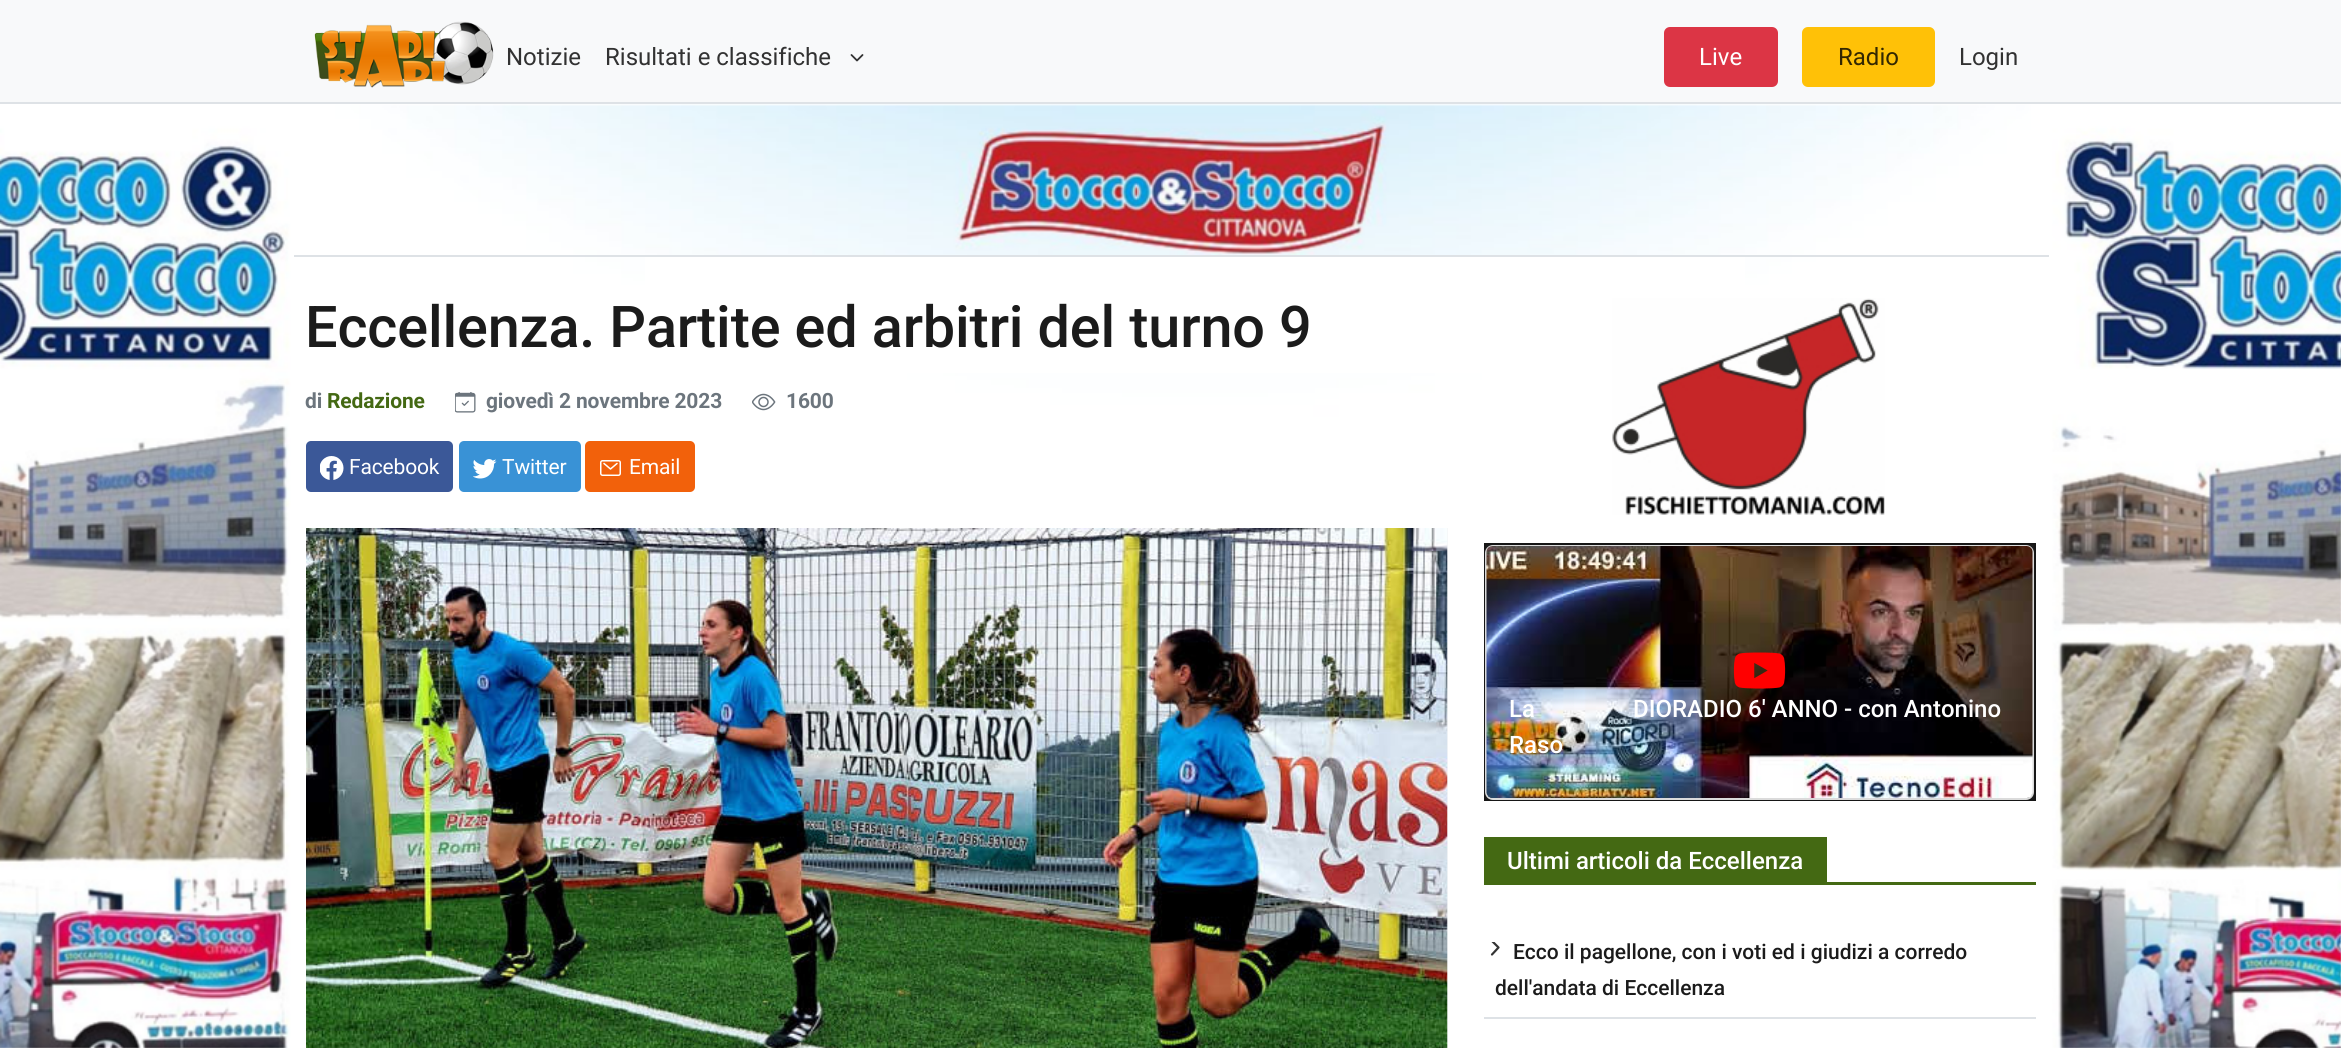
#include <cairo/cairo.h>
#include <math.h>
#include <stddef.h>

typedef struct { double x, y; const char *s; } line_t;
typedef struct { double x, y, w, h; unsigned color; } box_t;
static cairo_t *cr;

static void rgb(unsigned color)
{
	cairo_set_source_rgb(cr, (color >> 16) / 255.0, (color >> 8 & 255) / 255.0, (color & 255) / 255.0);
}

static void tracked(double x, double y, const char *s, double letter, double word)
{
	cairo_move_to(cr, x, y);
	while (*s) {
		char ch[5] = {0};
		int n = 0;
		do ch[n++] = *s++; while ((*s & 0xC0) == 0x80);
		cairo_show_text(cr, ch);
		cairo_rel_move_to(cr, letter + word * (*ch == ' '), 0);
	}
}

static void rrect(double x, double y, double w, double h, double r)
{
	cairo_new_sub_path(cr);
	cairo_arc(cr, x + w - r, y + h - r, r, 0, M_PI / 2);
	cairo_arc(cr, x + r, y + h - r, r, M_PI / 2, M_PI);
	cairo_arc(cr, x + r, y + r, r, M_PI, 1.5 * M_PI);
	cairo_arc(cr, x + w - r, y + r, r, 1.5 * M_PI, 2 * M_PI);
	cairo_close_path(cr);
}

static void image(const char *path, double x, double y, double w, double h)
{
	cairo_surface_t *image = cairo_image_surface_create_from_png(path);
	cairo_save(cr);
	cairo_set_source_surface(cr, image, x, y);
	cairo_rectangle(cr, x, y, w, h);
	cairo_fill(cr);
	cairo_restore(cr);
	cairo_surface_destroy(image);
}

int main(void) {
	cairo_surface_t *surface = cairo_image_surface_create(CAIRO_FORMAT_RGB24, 2341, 1048);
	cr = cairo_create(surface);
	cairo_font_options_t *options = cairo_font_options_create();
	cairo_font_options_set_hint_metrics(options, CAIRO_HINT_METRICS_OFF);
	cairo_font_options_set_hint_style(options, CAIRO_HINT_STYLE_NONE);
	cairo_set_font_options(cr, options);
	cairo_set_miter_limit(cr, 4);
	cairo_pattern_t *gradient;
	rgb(0xffffff);
	cairo_paint(cr);
	rgb(0xf8f9fa);
	cairo_rectangle(cr, 0, 0, 2341, 102);
	cairo_fill(cr);
	rgb(0xdee2e6);
	cairo_rectangle(cr, 0, 102, 2341, 2);
	cairo_fill(cr);
	image("img/1.png", 314, 21, 180, 67);
	cairo_new_path(cr);
	cairo_move_to(cr, 851.5, 55);
	cairo_line_to(cr, 857, 60.5);
	cairo_line_to(cr, 862.5, 55);
	rgb(0x323232);
	cairo_set_line_width(cr, 1.8);
	cairo_set_line_cap(cr, CAIRO_LINE_CAP_ROUND);
	cairo_set_line_join(cr, CAIRO_LINE_JOIN_ROUND);
	cairo_stroke(cr);
	rgb(0xdc3545);
	rrect(1664, 27, 114, 60, 6);
	cairo_fill(cr);
	rgb(0xffc107);
	rrect(1802, 27, 133, 60, 6);
	cairo_fill(cr);
	image("img/2.png", 0, 104, 2341, 944);
	rgb(0xdee2e6);
	cairo_rectangle(cr, 294, 255, 1755, 2);
	cairo_fill(cr);
	rgb(0xffffff);
	cairo_rectangle(cr, 645, 257, 1100, 116);
	cairo_fill(cr);
	image("img/3.png", 455, 392, 21, 21);
	image("img/4.png", 752, 393, 24, 18);
	rgb(0x3b5898);
	rrect(306, 441, 147, 51, 5);
	cairo_fill(cr);
	image("img/5.png", 320, 456, 24, 24);
	rgb(0x3992d6);
	rrect(459, 441, 122, 51, 5);
	cairo_fill(cr);
	image("img/6.png", 473, 459, 24, 20);
	rgb(0xf2610b);
	rrect(585, 441, 110, 51, 5);
	cairo_fill(cr);
	rrect(600.75, 460.75, 19.5, 14.5, 1.75);
	rgb(0xffffff);
	cairo_set_line_width(cr, 1.5);
	cairo_set_line_cap(cr, CAIRO_LINE_CAP_BUTT);
	cairo_set_line_join(cr, CAIRO_LINE_JOIN_MITER);
	cairo_stroke(cr);
	cairo_new_path(cr);
	cairo_move_to(cr, 604, 463.5);
	cairo_line_to(cr, 610.5, 469);
	cairo_line_to(cr, 617, 463.5);
	cairo_set_line_cap(cr, CAIRO_LINE_CAP_ROUND);
	cairo_set_line_join(cr, CAIRO_LINE_JOIN_ROUND);
	cairo_stroke(cr);
	gradient = cairo_pattern_create_linear(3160, 833, -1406, 833);
	cairo_pattern_add_color_stop_rgba(gradient, 0, 0.973, 0.976, 0.98, 1);
	cairo_pattern_add_color_stop_rgba(gradient, 0.15, 0.808, 0.831, 0.855, 1);
	cairo_pattern_add_color_stop_rgba(gradient, 0.4, 0.973, 0.976, 0.98, 1);
	cairo_pattern_add_color_stop_rgba(gradient, 1, 0.973, 0.976, 0.98, 1);
	cairo_set_source(cr, gradient);
	cairo_pattern_destroy(gradient);
	cairo_rectangle(cr, 1447, 528, 1, 520);
	cairo_fill(cr);
	image("img/7.png", 306, 528, 1142, 520);
	image("img/8.png", 1612, 298, 273, 217);
	rgb(0x1b1b1b);
	cairo_rectangle(cr, 1485, 544, 550, 256);
	cairo_fill_preserve(cr);
	rgb(0x161616);
	cairo_set_line_width(cr, 2);
	cairo_set_line_cap(cr, CAIRO_LINE_CAP_BUTT);
	cairo_set_line_join(cr, CAIRO_LINE_JOIN_MITER);
	cairo_stroke(cr);
	rrect(1486, 546, 547, 253, 7);
	rgb(0xdbdbdb);
	cairo_stroke(cr);
	image("img/9.png", 1486, 546, 547, 252);
	image("img/10.png", 1733, 652, 53, 37);
	{
		static const box_t items[] = {
			{1827, 882, 209, 3, 0x446913},
			{1484, 837, 343, 48, 0x446913},
			{1484, 1017, 552, 2, 0xdee2e6},
		};
		for (size_t i = 0; i < sizeof items / sizeof *items; i++) {
			rgb(items[i].color);
			cairo_rectangle(cr, items[i].x, items[i].y, items[i].w, items[i].h);
			cairo_fill(cr);
		}
	}
	cairo_save(cr);
	cairo_new_path(cr);
	cairo_move_to(cr, 1483, 960);
	cairo_line_to(cr, 1483, 942);
	cairo_line_to(cr, 1501, 942);
	cairo_line_to(cr, 1501, 960);
	cairo_close_path(cr);
	cairo_clip(cr);
	cairo_new_path(cr);
	cairo_move_to(cr, 1492, 954.5);
	cairo_line_to(cr, 1498.5, 947.5);
	cairo_line_to(cr, 1492, 941);
	rgb(0x333333);
	cairo_set_line_width(cr, 2.2);
	cairo_set_line_cap(cr, CAIRO_LINE_CAP_ROUND);
	cairo_set_line_join(cr, CAIRO_LINE_JOIN_ROUND);
	cairo_stroke(cr);
	cairo_restore(cr);
	cairo_select_font_face(cr, "Roboto", CAIRO_FONT_SLANT_NORMAL, CAIRO_FONT_WEIGHT_NORMAL);
	cairo_set_font_size(cr, 24);
	rgb(0x323232);
	cairo_move_to(cr, 506, 65);
	cairo_show_text(cr, "Notizie");
	cairo_move_to(cr, 605, 65);
	cairo_show_text(cr, "Risultati e classifiche");
	rgb(0xffffff);
	cairo_move_to(cr, 1699, 65);
	cairo_show_text(cr, "Live");
	rgb(0x332701);
	cairo_move_to(cr, 1838, 65);
	cairo_show_text(cr, "Radio");
	rgb(0x323232);
	cairo_move_to(cr, 1959, 65);
	cairo_show_text(cr, "Login");
	cairo_select_font_face(cr, "Roboto Medium", CAIRO_FONT_SLANT_NORMAL, CAIRO_FONT_WEIGHT_NORMAL);
	cairo_set_font_size(cr, 57.6);
	rgb(0x1b1b1b);
	tracked(305, 347, "Eccellenza. Partite ed arbitri del turno 9", -0.15, 0);
	cairo_select_font_face(cr, "Roboto", CAIRO_FONT_SLANT_NORMAL, CAIRO_FONT_WEIGHT_BOLD);
	cairo_set_font_size(cr, 21);
	rgb(0x6c757d);
	tracked(305, 408, "di", -0.15, 0);
	rgb(0x446913);
	tracked(327, 408, "Redazione", -0.15, 0);
	rgb(0x6c757d);
	tracked(486, 408, "giovedì 2 novembre 2023", -0.15, 0);
	tracked(786, 408, "1600", -0.15, 0);
	cairo_select_font_face(cr, "Roboto", CAIRO_FONT_SLANT_NORMAL, CAIRO_FONT_WEIGHT_NORMAL);
	rgb(0xffffff);
	{
		static const line_t items[] = {
			{349, 474, "Facebook"},
			{502, 474, "Twitter"},
			{629, 474, "Email"},
		};
		for (size_t i = 0; i < sizeof items / sizeof *items; i++) {
			tracked(items[i].x, items[i].y, items[i].s, -0.15, 0);
		}
	}
	cairo_select_font_face(cr, "Roboto Medium", CAIRO_FONT_SLANT_NORMAL, CAIRO_FONT_WEIGHT_NORMAL);
	cairo_set_font_size(cr, 24);
	{
		static const line_t items[] = {
			{1509, 717, "La"},
			{1633, 717, "DIORADIO 6' ANNO - con Antonino"},
			{1509, 753, "Raso"},
			{1507, 869, "Ultimi articoli da Eccellenza"},
		};
		for (size_t i = 0; i < sizeof items / sizeof *items; i++) {
			cairo_move_to(cr, items[i].x, items[i].y);
			cairo_show_text(cr, items[i].s);
		}
	}
	cairo_set_font_size(cr, 21);
	rgb(0x1b1b1b);
	cairo_move_to(cr, 1513, 959);
	cairo_show_text(cr, "Ecco il pagellone, con i voti ed i giudizi a corredo");
	cairo_move_to(cr, 1495, 995);
	cairo_show_text(cr, "dell'andata di Eccellenza");
	cairo_surface_write_to_png(surface, "page.png");
	cairo_font_options_destroy(options);
	cairo_destroy(cr);
	cairo_surface_destroy(surface);
	return 0;
}
